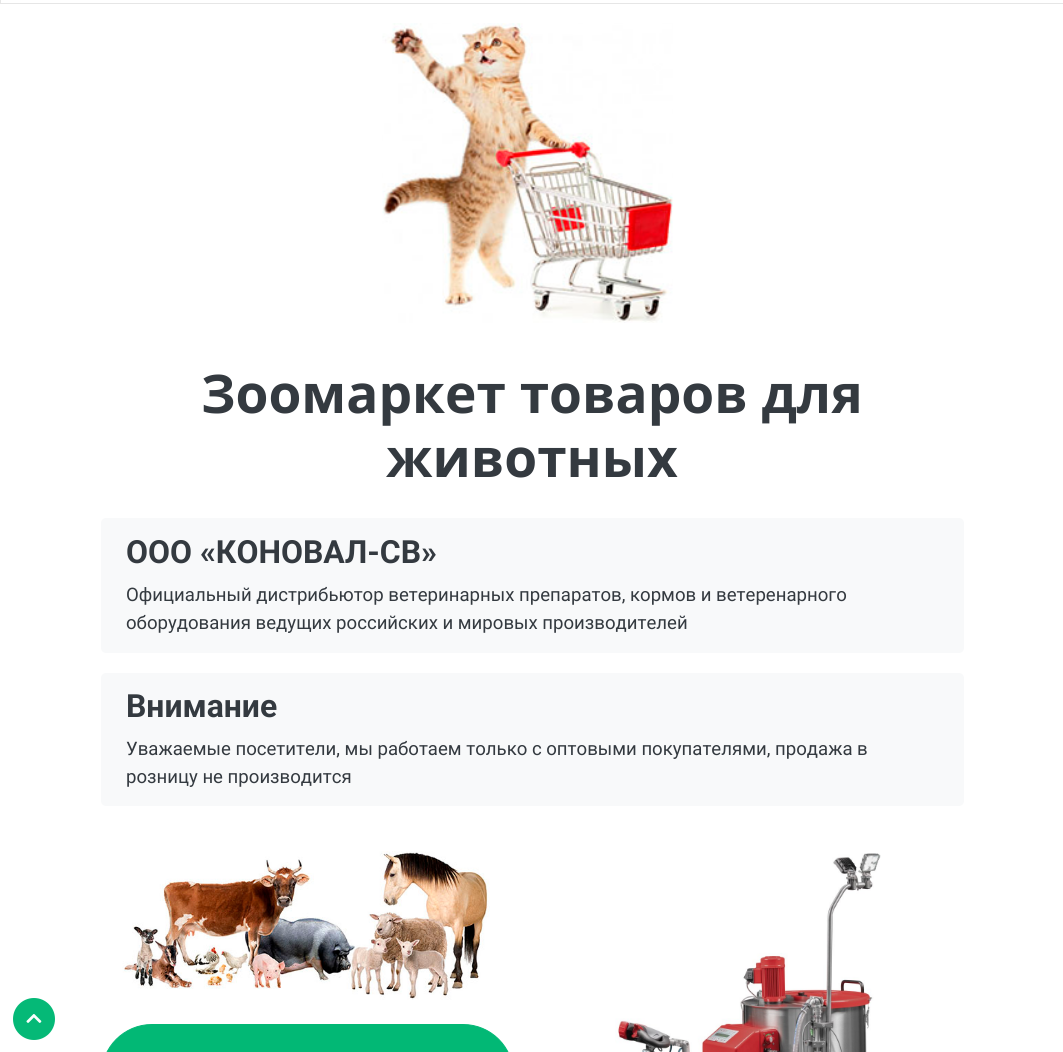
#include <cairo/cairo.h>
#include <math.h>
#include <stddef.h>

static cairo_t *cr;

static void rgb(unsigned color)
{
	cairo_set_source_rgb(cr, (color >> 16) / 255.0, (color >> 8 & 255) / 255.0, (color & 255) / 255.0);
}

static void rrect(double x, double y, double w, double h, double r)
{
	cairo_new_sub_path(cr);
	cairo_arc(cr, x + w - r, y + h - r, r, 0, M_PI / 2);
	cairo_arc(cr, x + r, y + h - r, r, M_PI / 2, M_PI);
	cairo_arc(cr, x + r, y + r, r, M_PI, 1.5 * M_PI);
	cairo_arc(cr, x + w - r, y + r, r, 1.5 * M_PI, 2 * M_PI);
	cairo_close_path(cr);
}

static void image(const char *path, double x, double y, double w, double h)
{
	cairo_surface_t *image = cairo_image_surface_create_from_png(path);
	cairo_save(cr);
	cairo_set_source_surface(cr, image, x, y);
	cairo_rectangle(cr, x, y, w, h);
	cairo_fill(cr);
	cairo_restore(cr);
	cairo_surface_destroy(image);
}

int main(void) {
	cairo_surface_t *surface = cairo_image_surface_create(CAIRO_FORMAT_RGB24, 1063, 1052);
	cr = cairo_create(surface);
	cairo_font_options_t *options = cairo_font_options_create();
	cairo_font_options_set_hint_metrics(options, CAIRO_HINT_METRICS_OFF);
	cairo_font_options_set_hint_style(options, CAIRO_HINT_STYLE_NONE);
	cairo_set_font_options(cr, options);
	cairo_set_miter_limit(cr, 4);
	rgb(0xffffff);
	cairo_paint(cr);
	cairo_rectangle(cr, 0.5, -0.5, 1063, 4);
	rgb(0xe6e6e6);
	cairo_set_line_width(cr, 1);
	cairo_stroke(cr);
	image("img/1.png", 382, 23, 291, 300);
	rgb(0xf8f9fa);
	rrect(101, 518, 863, 135, 5);
	cairo_fill(cr);
	rrect(101, 673, 863, 133, 5);
	cairo_fill(cr);
	image("img/2.png", 122, 851, 368, 149);
	rgb(0x02b875);
	rrect(101.5, 1024.5, 412, 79, 50.5);
	cairo_fill_preserve(cr);
	cairo_stroke(cr);
	image("img/3.png", 615, 853, 266, 199);
	rgb(0x05b977);
	cairo_arc(cr, 34, 1019, 21, 0, 2 * M_PI);
	cairo_fill(cr);
	image("img/4.png", 26, 1014, 16, 9);
	cairo_select_font_face(cr, "Open Sans", CAIRO_FONT_SLANT_NORMAL, CAIRO_FONT_WEIGHT_BOLD);
	cairo_set_font_size(cr, 53.2);
	rgb(0x343a40);
	cairo_move_to(cr, 201, 413);
	cairo_show_text(cr, "Зоомаркет товаров для");
	cairo_move_to(cr, 386, 477);
	cairo_show_text(cr, "животных");
	cairo_select_font_face(cr, "Roboto", CAIRO_FONT_SLANT_NORMAL, CAIRO_FONT_WEIGHT_BOLD);
	cairo_set_font_size(cr, 31.9);
	cairo_move_to(cr, 126, 563);
	cairo_show_text(cr, "ООО «КОНОВАЛ-СВ»");
	cairo_select_font_face(cr, "Roboto", CAIRO_FONT_SLANT_NORMAL, CAIRO_FONT_WEIGHT_NORMAL);
	cairo_set_font_size(cr, 18.6);
	cairo_move_to(cr, 126, 601);
	cairo_show_text(cr, "Официальный дистрибьютор ветеринарных препаратов, кормов и ветеренарного");
	cairo_move_to(cr, 126, 629);
	cairo_show_text(cr, "оборудования ведущих российских и мировых производителей");
	cairo_select_font_face(cr, "Roboto", CAIRO_FONT_SLANT_NORMAL, CAIRO_FONT_WEIGHT_BOLD);
	cairo_set_font_size(cr, 31.9);
	cairo_move_to(cr, 126, 717);
	cairo_show_text(cr, "Внимание");
	cairo_select_font_face(cr, "Roboto", CAIRO_FONT_SLANT_NORMAL, CAIRO_FONT_WEIGHT_NORMAL);
	cairo_set_font_size(cr, 18.6);
	cairo_move_to(cr, 126, 755);
	cairo_show_text(cr, "Уважаемые посетители, мы работаем только с оптовыми покупателями, продажа в");
	cairo_move_to(cr, 126, 783);
	cairo_show_text(cr, "розницу не производится");
	cairo_surface_write_to_png(surface, "page.png");
	cairo_font_options_destroy(options);
	cairo_destroy(cr);
	cairo_surface_destroy(surface);
	return 0;
}
